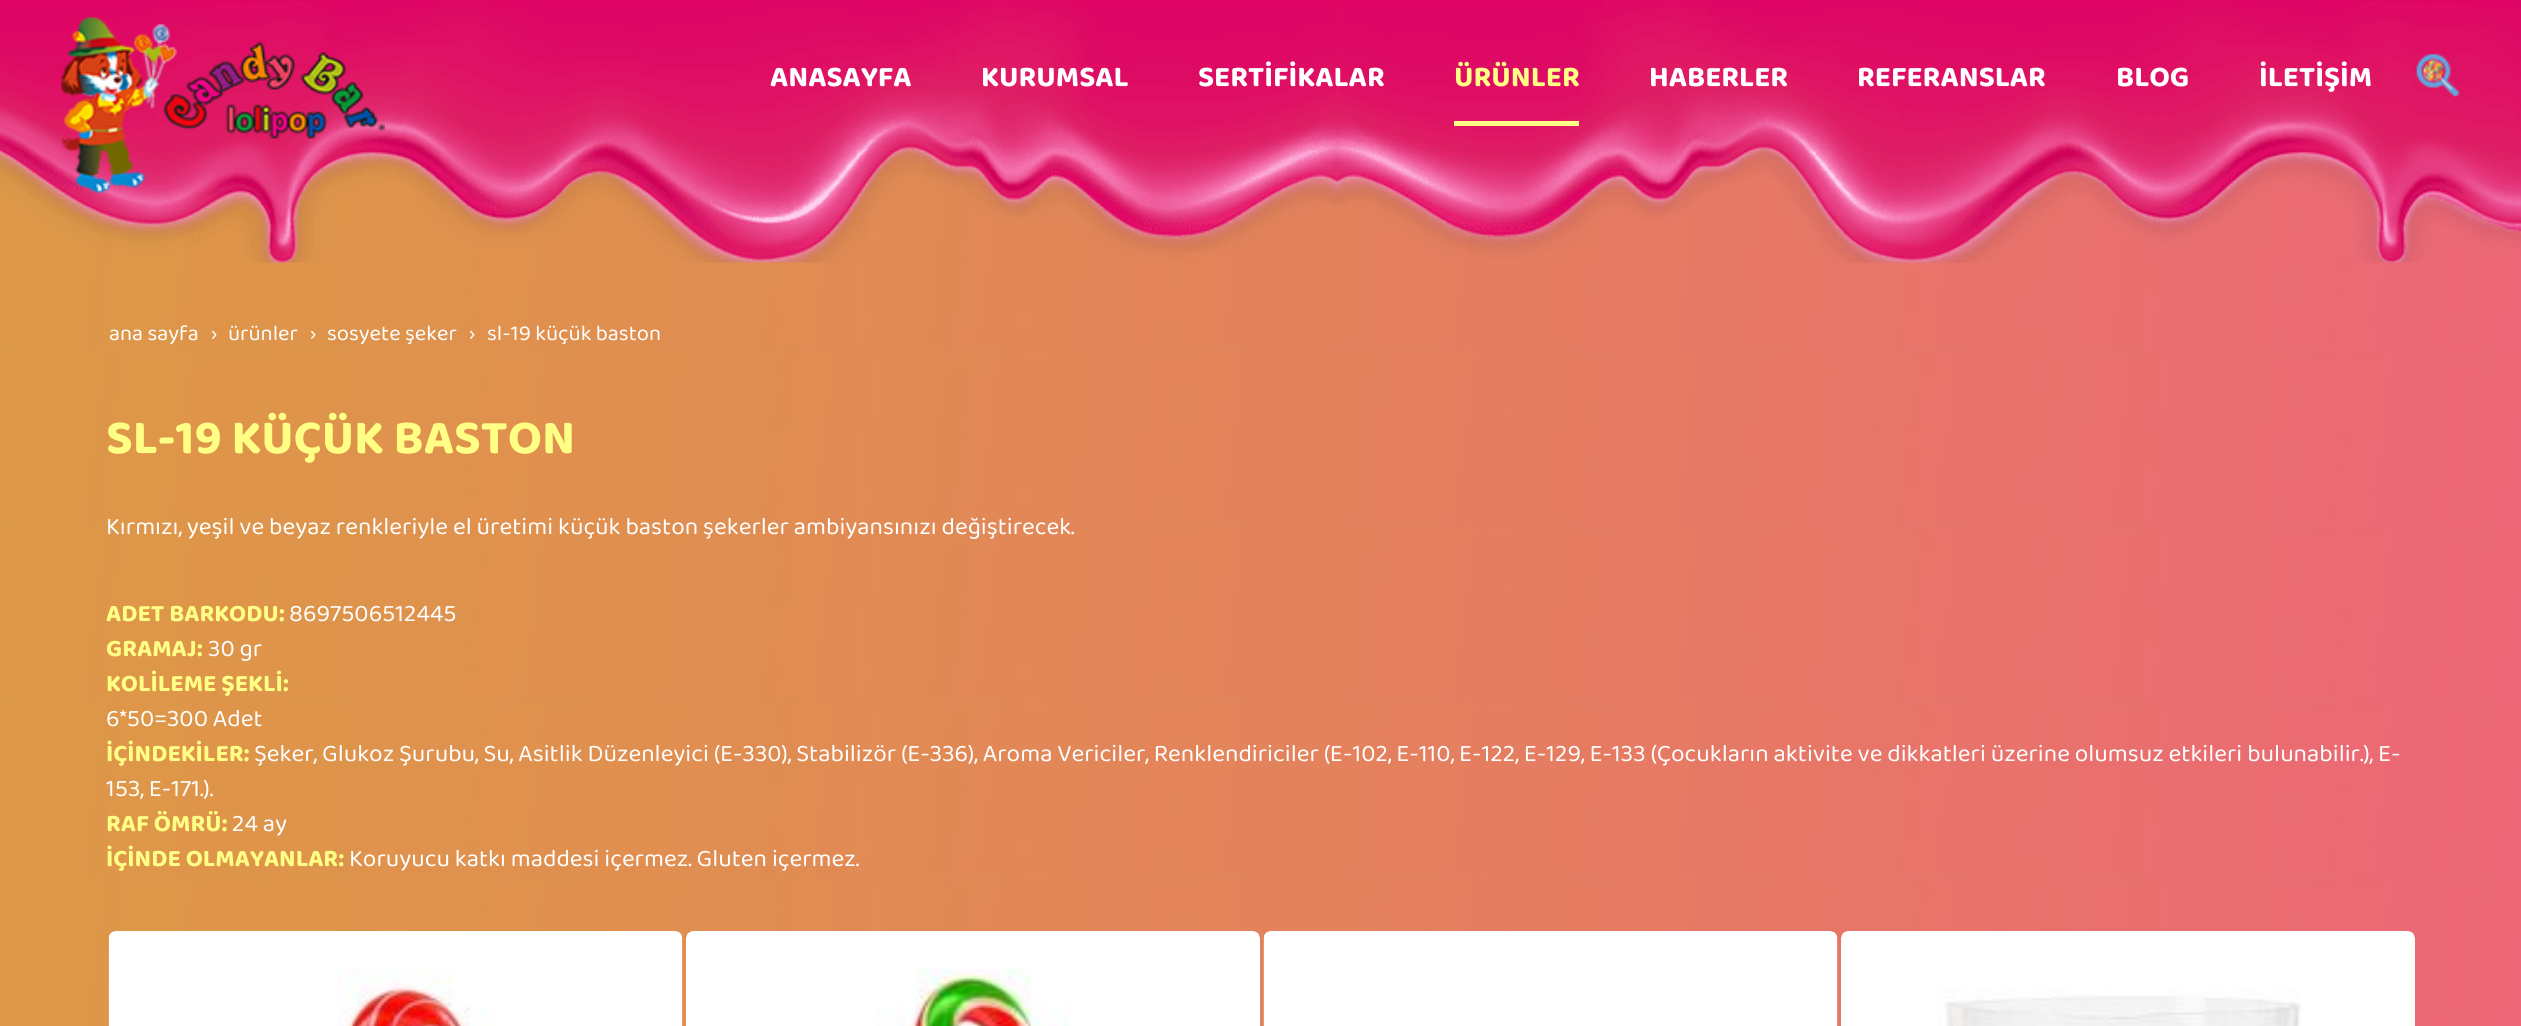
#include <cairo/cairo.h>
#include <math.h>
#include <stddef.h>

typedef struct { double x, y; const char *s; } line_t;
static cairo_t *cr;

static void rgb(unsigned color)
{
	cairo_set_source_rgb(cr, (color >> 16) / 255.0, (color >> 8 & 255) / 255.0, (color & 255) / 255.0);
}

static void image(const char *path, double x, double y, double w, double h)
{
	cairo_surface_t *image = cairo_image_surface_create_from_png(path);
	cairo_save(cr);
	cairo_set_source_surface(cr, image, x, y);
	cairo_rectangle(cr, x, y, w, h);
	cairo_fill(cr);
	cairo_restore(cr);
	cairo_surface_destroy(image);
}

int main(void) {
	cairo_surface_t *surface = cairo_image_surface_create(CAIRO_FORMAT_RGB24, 2521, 1026);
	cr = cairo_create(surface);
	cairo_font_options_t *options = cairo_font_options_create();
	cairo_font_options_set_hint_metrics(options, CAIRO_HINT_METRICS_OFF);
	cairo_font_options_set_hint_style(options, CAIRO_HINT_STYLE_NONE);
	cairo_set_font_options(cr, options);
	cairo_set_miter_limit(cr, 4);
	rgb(0xffffff);
	cairo_paint(cr);
	image("img/1.png", 0, 136, 2521, 890);
	image("img/2.png", 0, 0, 2521, 263);
	image("img/3.png", 61, 17, 324, 176);
	rgb(0xffff86);
	cairo_rectangle(cr, 1454, 121, 125, 5);
	cairo_fill(cr);
	image("img/4.png", 2416, 54, 43, 43);
	image("img/5.png", 108, 931, 575, 95);
	image("img/6.png", 686, 931, 574, 95);
	image("img/7.png", 1263, 931, 575, 95);
	image("img/8.png", 1841, 931, 574, 95);
	cairo_select_font_face(cr, "Baloo Da 2", CAIRO_FONT_SLANT_NORMAL, CAIRO_FONT_WEIGHT_BOLD);
	cairo_set_font_size(cr, 29.5);
	rgb(0xffffff);
	{
		static const line_t items[] = {
			{770, 86, "ANASAYFA"},
			{981, 86, "KURUMSAL"},
			{1198, 86, "SERTİFİKALAR"},
		};
		for (size_t i = 0; i < sizeof items / sizeof *items; i++) {
			cairo_move_to(cr, items[i].x, items[i].y);
			cairo_show_text(cr, items[i].s);
		}
	}
	rgb(0xffff86);
	cairo_move_to(cr, 1454, 86);
	cairo_show_text(cr, "ÜRÜNLER");
	rgb(0xffffff);
	{
		static const line_t items[] = {
			{1649, 86, "HABERLER"},
			{1857, 86, "REFERANSLAR"},
			{2116, 86, "BLOG"},
			{2259, 86, "İLETİŞİM"},
		};
		for (size_t i = 0; i < sizeof items / sizeof *items; i++) {
			cairo_move_to(cr, items[i].x, items[i].y);
			cairo_show_text(cr, items[i].s);
		}
	}
	cairo_select_font_face(cr, "Baloo Da 2", CAIRO_FONT_SLANT_NORMAL, CAIRO_FONT_WEIGHT_NORMAL);
	cairo_set_font_size(cr, 22);
	{
		static const line_t items[] = {
			{109, 340, "ana sayfa"},
			{211, 340, "›"},
			{228, 340, "ürünler"},
			{310, 340, "›"},
			{327, 340, "sosyete şeker"},
			{469, 340, "›"},
			{487, 340, "sl-19 küçük baston"},
		};
		for (size_t i = 0; i < sizeof items / sizeof *items; i++) {
			cairo_move_to(cr, items[i].x, items[i].y);
			cairo_show_text(cr, items[i].s);
		}
	}
	cairo_select_font_face(cr, "Baloo Da 2", CAIRO_FONT_SLANT_NORMAL, CAIRO_FONT_WEIGHT_BOLD);
	cairo_set_font_size(cr, 49);
	rgb(0xffff86);
	cairo_move_to(cr, 106, 453);
	cairo_show_text(cr, "SL-19 KÜÇÜK BASTON");
	cairo_select_font_face(cr, "Baloo Da 2", CAIRO_FONT_SLANT_NORMAL, CAIRO_FONT_WEIGHT_NORMAL);
	cairo_set_font_size(cr, 24.5);
	rgb(0xffffff);
	cairo_move_to(cr, 106, 534);
	cairo_show_text(cr, "Kırmızı, yeşil ve beyaz renkleriyle el üretimi küçük baston şekerler ambiyansınızı değiştirecek.");
	cairo_select_font_face(cr, "Baloo Da 2", CAIRO_FONT_SLANT_NORMAL, CAIRO_FONT_WEIGHT_BOLD);
	rgb(0xffff86);
	cairo_move_to(cr, 106, 621);
	cairo_show_text(cr, "ADET BARKODU:");
	cairo_select_font_face(cr, "Baloo Da 2", CAIRO_FONT_SLANT_NORMAL, CAIRO_FONT_WEIGHT_NORMAL);
	rgb(0xffffff);
	cairo_move_to(cr, 289, 621);
	cairo_show_text(cr, "8697506512445");
	cairo_select_font_face(cr, "Baloo Da 2", CAIRO_FONT_SLANT_NORMAL, CAIRO_FONT_WEIGHT_BOLD);
	rgb(0xffff86);
	cairo_move_to(cr, 106, 656);
	cairo_show_text(cr, "GRAMAJ:");
	cairo_select_font_face(cr, "Baloo Da 2", CAIRO_FONT_SLANT_NORMAL, CAIRO_FONT_WEIGHT_NORMAL);
	rgb(0xffffff);
	cairo_move_to(cr, 208, 656);
	cairo_show_text(cr, "30 gr");
	cairo_select_font_face(cr, "Baloo Da 2", CAIRO_FONT_SLANT_NORMAL, CAIRO_FONT_WEIGHT_BOLD);
	rgb(0xffff86);
	cairo_move_to(cr, 106, 691);
	cairo_show_text(cr, "KOLİLEME ŞEKLİ:");
	cairo_select_font_face(cr, "Baloo Da 2", CAIRO_FONT_SLANT_NORMAL, CAIRO_FONT_WEIGHT_NORMAL);
	rgb(0xffffff);
	cairo_move_to(cr, 106, 726);
	cairo_show_text(cr, "6*50=300 Adet");
	cairo_select_font_face(cr, "Baloo Da 2", CAIRO_FONT_SLANT_NORMAL, CAIRO_FONT_WEIGHT_BOLD);
	rgb(0xffff86);
	cairo_move_to(cr, 106, 761);
	cairo_show_text(cr, "İÇİNDEKİLER:");
	cairo_select_font_face(cr, "Baloo Da 2", CAIRO_FONT_SLANT_NORMAL, CAIRO_FONT_WEIGHT_NORMAL);
	rgb(0xffffff);
	cairo_move_to(cr, 254, 761);
	cairo_show_text(cr, "Şeker, Glukoz Şurubu, Su, Asitlik Düzenleyici (E-330), Stabilizör (E-336), Aroma Vericiler, Renklendiriciler (E-102, E-110, E-122, E-129, E-133 (Çocukların aktivite ve dikkatleri üzerine olumsuz etkileri bulunabilir.), E-");
	cairo_move_to(cr, 106, 796);
	cairo_show_text(cr, "153, E-171.).");
	cairo_select_font_face(cr, "Baloo Da 2", CAIRO_FONT_SLANT_NORMAL, CAIRO_FONT_WEIGHT_BOLD);
	rgb(0xffff86);
	cairo_move_to(cr, 106, 831);
	cairo_show_text(cr, "RAF ÖMRÜ:");
	cairo_select_font_face(cr, "Baloo Da 2", CAIRO_FONT_SLANT_NORMAL, CAIRO_FONT_WEIGHT_NORMAL);
	rgb(0xffffff);
	cairo_move_to(cr, 232, 831);
	cairo_show_text(cr, "24 ay");
	cairo_select_font_face(cr, "Baloo Da 2", CAIRO_FONT_SLANT_NORMAL, CAIRO_FONT_WEIGHT_BOLD);
	rgb(0xffff86);
	cairo_move_to(cr, 106, 866);
	cairo_show_text(cr, "İÇİNDE OLMAYANLAR:");
	cairo_select_font_face(cr, "Baloo Da 2", CAIRO_FONT_SLANT_NORMAL, CAIRO_FONT_WEIGHT_NORMAL);
	rgb(0xffffff);
	cairo_move_to(cr, 349, 866);
	cairo_show_text(cr, "Koruyucu katkı maddesi içermez. Gluten içermez.");
	cairo_surface_write_to_png(surface, "page.png");
	cairo_font_options_destroy(options);
	cairo_destroy(cr);
	cairo_surface_destroy(surface);
	return 0;
}
